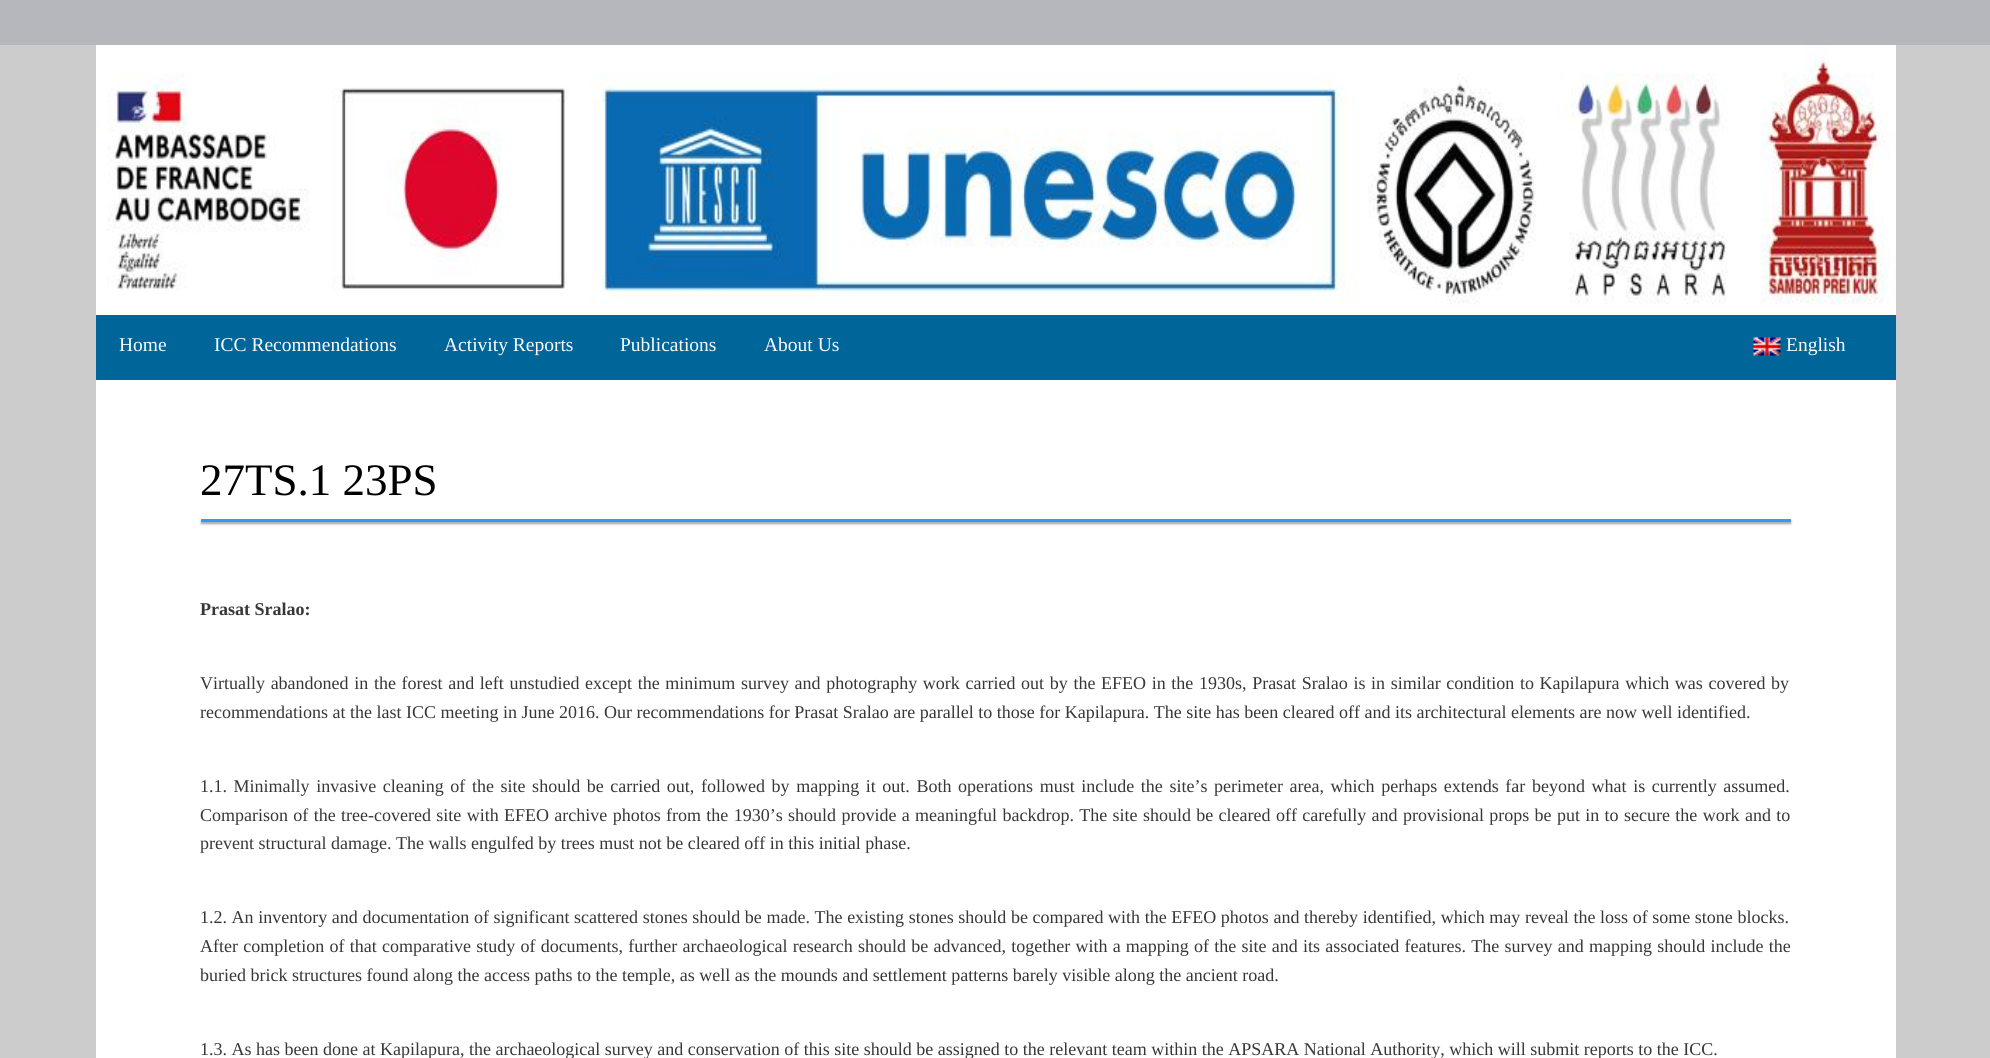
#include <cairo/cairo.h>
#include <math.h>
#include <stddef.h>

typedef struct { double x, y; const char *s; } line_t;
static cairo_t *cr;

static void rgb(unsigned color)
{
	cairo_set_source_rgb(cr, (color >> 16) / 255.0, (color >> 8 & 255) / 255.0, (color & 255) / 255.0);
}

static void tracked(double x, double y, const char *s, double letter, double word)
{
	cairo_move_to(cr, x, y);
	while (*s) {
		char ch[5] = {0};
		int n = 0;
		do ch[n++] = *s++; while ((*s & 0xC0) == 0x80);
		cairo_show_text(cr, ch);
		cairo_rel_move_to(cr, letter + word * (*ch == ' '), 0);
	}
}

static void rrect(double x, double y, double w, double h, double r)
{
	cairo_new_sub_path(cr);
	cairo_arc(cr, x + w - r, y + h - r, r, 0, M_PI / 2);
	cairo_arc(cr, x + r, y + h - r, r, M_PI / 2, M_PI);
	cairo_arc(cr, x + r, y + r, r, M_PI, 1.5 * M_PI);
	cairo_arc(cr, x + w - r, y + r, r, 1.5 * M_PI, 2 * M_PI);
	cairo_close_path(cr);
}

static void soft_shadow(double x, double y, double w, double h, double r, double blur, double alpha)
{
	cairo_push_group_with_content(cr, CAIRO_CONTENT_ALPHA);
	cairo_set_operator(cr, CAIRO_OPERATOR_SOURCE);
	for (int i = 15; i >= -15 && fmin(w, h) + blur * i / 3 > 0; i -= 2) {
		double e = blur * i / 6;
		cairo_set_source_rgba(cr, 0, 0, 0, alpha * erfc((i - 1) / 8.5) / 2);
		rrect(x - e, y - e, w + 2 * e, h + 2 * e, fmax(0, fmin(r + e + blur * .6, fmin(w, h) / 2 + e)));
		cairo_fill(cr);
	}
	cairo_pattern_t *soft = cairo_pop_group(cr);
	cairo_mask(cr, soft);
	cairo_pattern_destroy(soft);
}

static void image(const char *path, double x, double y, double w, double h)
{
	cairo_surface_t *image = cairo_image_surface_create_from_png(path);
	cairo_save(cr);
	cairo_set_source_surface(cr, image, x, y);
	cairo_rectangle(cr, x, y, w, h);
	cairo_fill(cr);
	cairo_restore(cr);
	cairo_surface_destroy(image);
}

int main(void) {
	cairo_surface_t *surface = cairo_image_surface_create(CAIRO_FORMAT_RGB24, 1990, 1058);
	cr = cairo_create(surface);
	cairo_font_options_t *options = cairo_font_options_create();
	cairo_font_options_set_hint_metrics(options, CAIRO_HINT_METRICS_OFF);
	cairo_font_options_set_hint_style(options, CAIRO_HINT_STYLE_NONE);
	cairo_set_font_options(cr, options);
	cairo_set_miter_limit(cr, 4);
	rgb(0xb6b7bc);
	cairo_paint(cr);
	rgb(0xcccccc);
	cairo_rectangle(cr, 0, 45, 1990, 1013);
	cairo_fill(cr);
	rgb(0xffffff);
	cairo_rectangle(cr, 96, 305, 1800, 10);
	cairo_fill(cr);
	image("img/1.png", 96, 45, 1800, 260);
	rgb(0x006699);
	cairo_rectangle(cr, 96, 315, 1800, 65);
	cairo_fill(cr);
	image("img/2.png", 1753, 337, 28, 19);
	rgb(0xffffff);
	cairo_rectangle(cr, 96, 380, 1800, 678);
	cairo_fill(cr);
	rgb(0x000000);
	soft_shadow(201, 521, 1590, 3, 0, 1, 0.19);
	soft_shadow(201, 521, 1590, 3, 0, 1, 0.2);
	rgb(0x3399ff);
	cairo_rectangle(cr, 201, 519, 1590, 3);
	cairo_fill(cr);
	cairo_select_font_face(cr, "Liberation Serif", CAIRO_FONT_SLANT_NORMAL, CAIRO_FONT_WEIGHT_NORMAL);
	cairo_set_font_size(cr, 19.5);
	rgb(0xffffff);
	{
		static const line_t items[] = {
			{119, 351, "Home"},
			{214, 351, "ICC Recommendations"},
			{444, 351, "Activity Reports"},
			{620, 351, "Publications"},
			{764, 351, "About Us"},
			{1786, 351, "English"},
		};
		for (size_t i = 0; i < sizeof items / sizeof *items; i++) {
			cairo_move_to(cr, items[i].x, items[i].y);
			cairo_show_text(cr, items[i].s);
		}
	}
	cairo_set_font_size(cr, 45);
	rgb(0x000000);
	cairo_move_to(cr, 200, 495);
	cairo_show_text(cr, "27TS.1 23PS");
	cairo_select_font_face(cr, "Liberation Serif", CAIRO_FONT_SLANT_NORMAL, CAIRO_FONT_WEIGHT_BOLD);
	cairo_set_font_size(cr, 18);
	rgb(0x373737);
	cairo_move_to(cr, 200, 615);
	cairo_show_text(cr, "Prasat Sralao:");
	cairo_select_font_face(cr, "Liberation Serif", CAIRO_FONT_SLANT_NORMAL, CAIRO_FONT_WEIGHT_NORMAL);
	tracked(200, 689, "Virtually abandoned in the forest and left unstudied except the minimum survey and photography work carried out by the EFEO in the 1930s, Prasat Sralao is in similar condition to Kapilapura which was covered by", 0, 1.15);
	cairo_move_to(cr, 200, 718);
	cairo_show_text(cr, "recommendations at the last ICC meeting in June 2016. Our recommendations for Prasat Sralao are parallel to those for Kapilapura. The site has been cleared off and its architectural elements are now well identified.");
	tracked(200, 792, "1.1. Minimally invasive cleaning of the site should be carried out, followed by mapping it out. Both operations must include the site’s perimeter area, which perhaps extends far beyond what is currently assumed.", 0, 2.1);
	tracked(200, 821, "Comparison of the tree-covered site with EFEO archive photos from the 1930’s should provide a meaningful backdrop. The site should be cleared off carefully and provisional props be put in to secure the work and to", 0, 0.85);
	cairo_move_to(cr, 200, 849);
	cairo_show_text(cr, "prevent structural damage. The walls engulfed by trees must not be cleared off in this initial phase.");
	tracked(200, 923, "1.2. An inventory and documentation of significant scattered stones should be made. The existing stones should be compared with the EFEO photos and thereby identified, which may reveal the loss of some stone blocks.", 0, 0.1);
	tracked(200, 952, "After completion of that comparative study of documents, further archaeological research should be advanced, together with a mapping of the site and its associated features. The survey and mapping should include the", 0, 0.75);
	cairo_move_to(cr, 200, 981);
	cairo_show_text(cr, "buried brick structures found along the access paths to the temple, as well as the mounds and settlement patterns barely visible along the ancient road.");
	cairo_move_to(cr, 200, 1055);
	cairo_show_text(cr, "1.3. As has been done at Kapilapura, the archaeological survey and conservation of this site should be assigned to the relevant team within the APSARA National Authority, which will submit reports to the ICC.");
	cairo_surface_write_to_png(surface, "page.png");
	cairo_font_options_destroy(options);
	cairo_destroy(cr);
	cairo_surface_destroy(surface);
	return 0;
}
